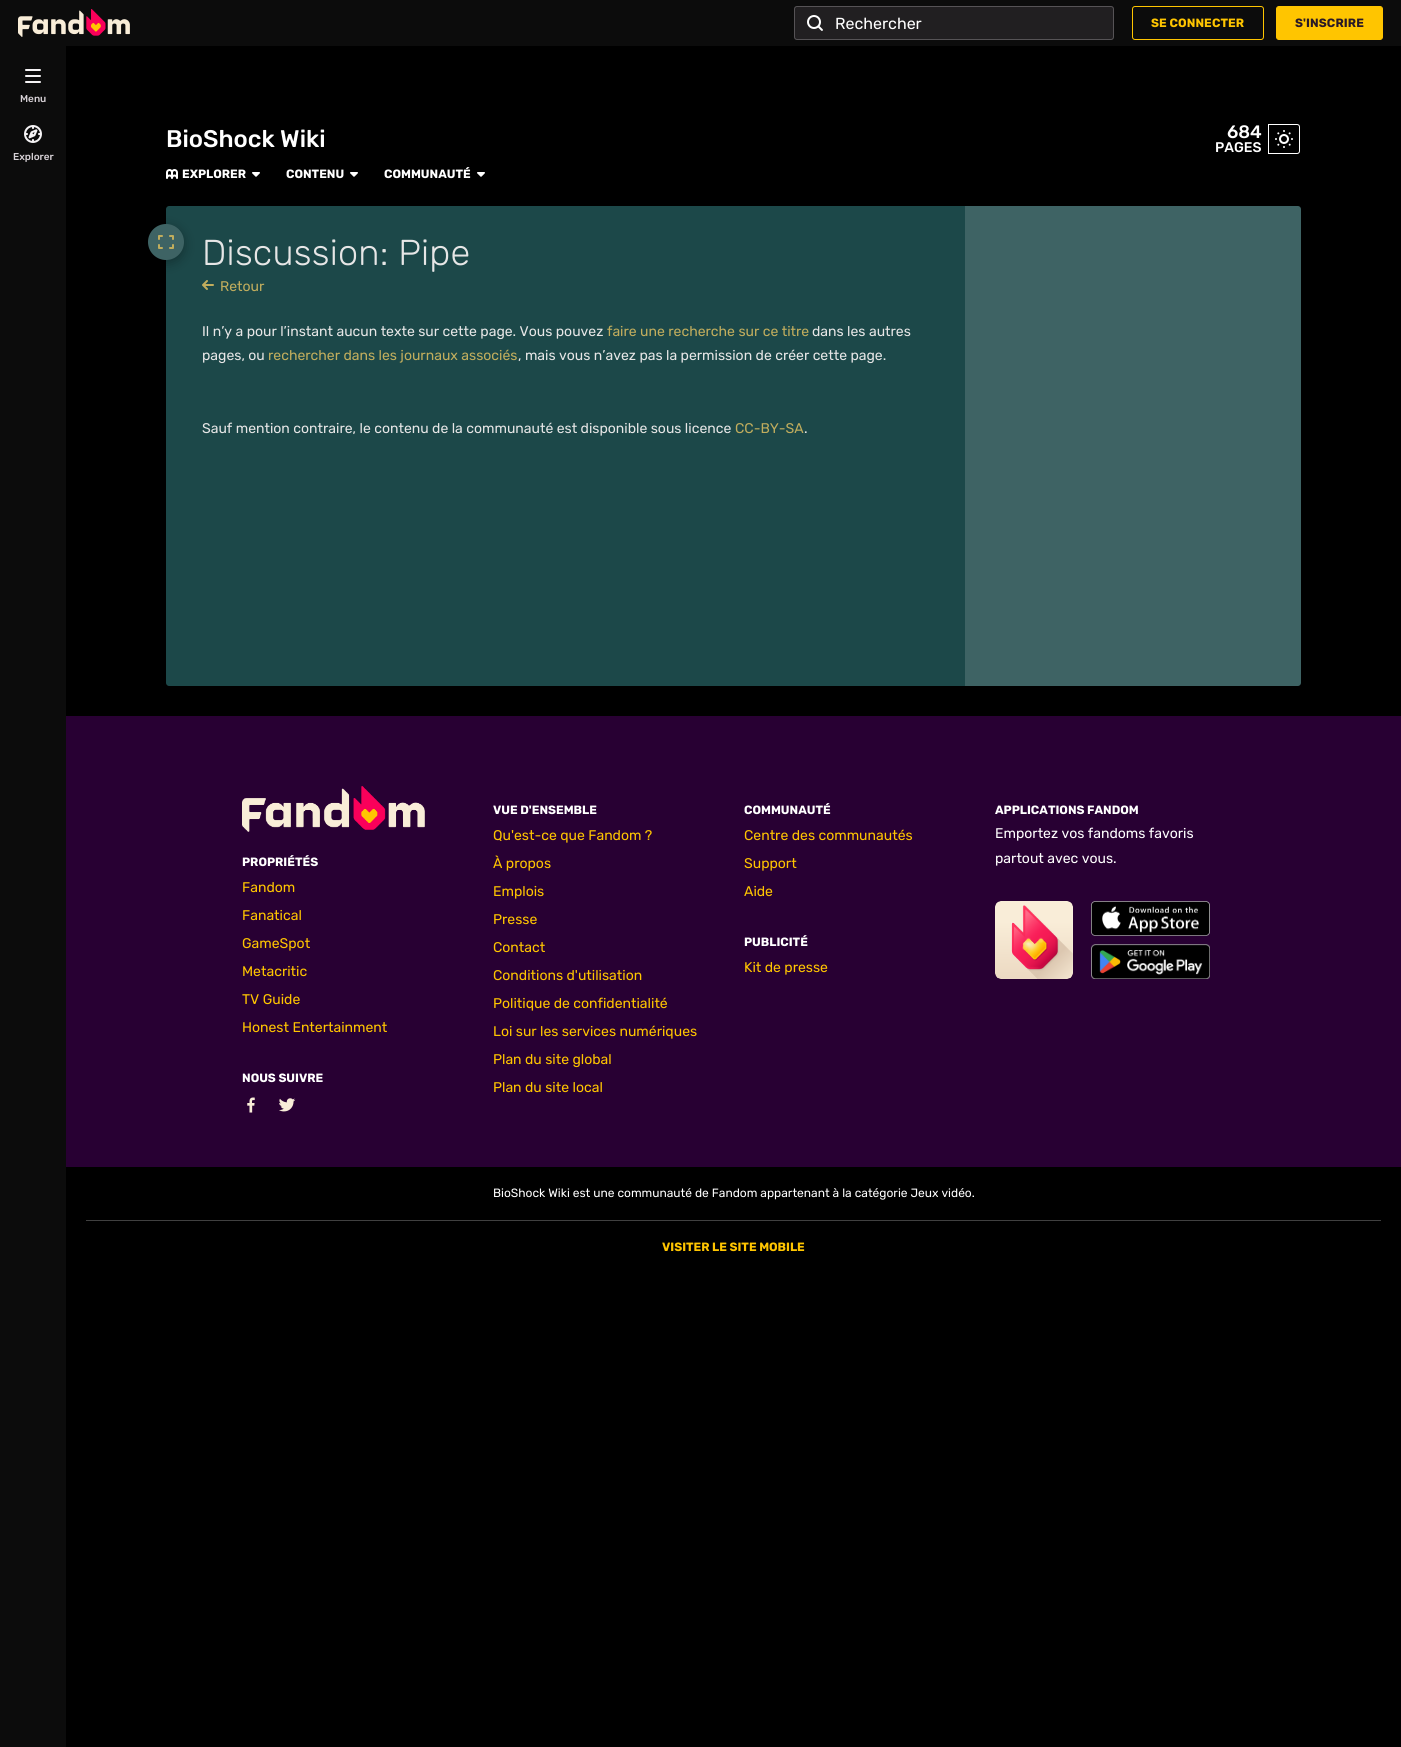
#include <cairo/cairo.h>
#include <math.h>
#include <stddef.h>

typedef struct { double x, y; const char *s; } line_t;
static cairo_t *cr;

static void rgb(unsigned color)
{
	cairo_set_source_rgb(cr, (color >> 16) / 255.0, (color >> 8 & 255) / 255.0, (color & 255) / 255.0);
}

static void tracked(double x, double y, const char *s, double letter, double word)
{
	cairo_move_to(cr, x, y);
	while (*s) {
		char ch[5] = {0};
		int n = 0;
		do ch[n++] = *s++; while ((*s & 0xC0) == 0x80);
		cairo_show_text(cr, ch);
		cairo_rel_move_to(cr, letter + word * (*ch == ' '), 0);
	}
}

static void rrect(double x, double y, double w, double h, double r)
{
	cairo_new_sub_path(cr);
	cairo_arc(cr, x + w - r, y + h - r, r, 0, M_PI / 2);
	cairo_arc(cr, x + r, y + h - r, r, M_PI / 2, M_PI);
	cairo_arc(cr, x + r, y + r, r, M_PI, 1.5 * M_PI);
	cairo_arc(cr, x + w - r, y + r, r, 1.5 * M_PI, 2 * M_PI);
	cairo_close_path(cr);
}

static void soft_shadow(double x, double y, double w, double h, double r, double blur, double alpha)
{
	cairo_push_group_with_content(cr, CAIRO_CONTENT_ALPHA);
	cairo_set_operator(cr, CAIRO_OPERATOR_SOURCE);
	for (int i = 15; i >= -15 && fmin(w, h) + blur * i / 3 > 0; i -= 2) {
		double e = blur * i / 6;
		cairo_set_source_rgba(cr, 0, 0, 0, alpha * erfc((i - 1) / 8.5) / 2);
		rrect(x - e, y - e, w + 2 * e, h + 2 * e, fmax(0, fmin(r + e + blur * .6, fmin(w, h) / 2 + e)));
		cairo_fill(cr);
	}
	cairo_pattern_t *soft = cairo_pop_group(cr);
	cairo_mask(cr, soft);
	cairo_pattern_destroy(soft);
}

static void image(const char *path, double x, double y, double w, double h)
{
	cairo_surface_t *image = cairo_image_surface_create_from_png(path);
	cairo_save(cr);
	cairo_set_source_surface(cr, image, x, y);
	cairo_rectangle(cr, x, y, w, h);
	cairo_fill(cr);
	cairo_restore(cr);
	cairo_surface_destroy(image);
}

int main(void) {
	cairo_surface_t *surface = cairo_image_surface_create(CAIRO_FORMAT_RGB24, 1401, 1747);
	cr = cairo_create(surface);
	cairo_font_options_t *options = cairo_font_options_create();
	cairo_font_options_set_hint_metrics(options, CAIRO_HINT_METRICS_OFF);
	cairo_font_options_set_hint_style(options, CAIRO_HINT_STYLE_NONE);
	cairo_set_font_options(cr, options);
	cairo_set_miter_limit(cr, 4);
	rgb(0x000000);
	cairo_paint(cr);
	rgb(0x0c0c0c);
	cairo_rectangle(cr, 0, 0, 1401, 46);
	cairo_fill(cr);
	image("img/1.png", 18, 9, 112, 28);
	rgb(0x211f21);
	rrect(794, 6, 320, 34, 3);
	cairo_fill(cr);
	rrect(794.5, 6.5, 319, 33, 2.5);
	cairo_set_source_rgba(cr, 0.961, 0.953, 0.961, 0.25);
	cairo_set_line_width(cr, 1);
	cairo_stroke(cr);
	image("img/2.png", 807, 15, 16, 16);
	rrect(1132.5, 6.5, 131, 33, 2.5);
	rgb(0xffc500);
	cairo_stroke(cr);
	rrect(1276.5, 6.5, 106, 33, 2.5);
	cairo_fill_preserve(cr);
	cairo_stroke(cr);
	rgb(0x0c0c0c);
	cairo_rectangle(cr, 0, 46, 66, 1701);
	cairo_fill(cr);
	image("img/3.png", 25, 69, 16, 14);
	image("img/4.png", 24, 125, 18, 18);
	cairo_new_path(cr);
	cairo_move_to(cr, 1268.5, 124.5);
	cairo_line_to(cr, 1297, 124.5);
	cairo_curve_to(cr, 1298.5, 124.5, 1299.5, 125.5, 1299.5, 127);
	cairo_line_to(cr, 1299.5, 151);
	cairo_curve_to(cr, 1299.5, 152.5, 1298.5, 153.5, 1297, 153.5);
	cairo_line_to(cr, 1268.5, 153.5);
	cairo_close_path(cr);
	rgb(0xffffff);
	cairo_stroke(cr);
	image("img/5.png", 1275, 130, 18, 18);
	image("img/6.png", 166, 169, 12, 10);
	image("img/7.png", 252, 172, 8, 5);
	image("img/7.png", 350, 172, 8, 5);
	image("img/7.png", 477, 172, 8, 5);
	rgb(0x1c4849);
	cairo_new_path(cr);
	cairo_move_to(cr, 169, 206);
	cairo_line_to(cr, 965, 206);
	cairo_line_to(cr, 965, 686);
	cairo_line_to(cr, 169, 686);
	cairo_curve_to(cr, 167.5, 686, 166, 684.5, 166, 683);
	cairo_line_to(cr, 166, 209);
	cairo_curve_to(cr, 166, 207.5, 167.5, 206, 169, 206);
	cairo_close_path(cr);
	cairo_fill(cr);
	image("img/9.png", 202, 280, 12, 10);
	rgb(0x000000);
	soft_shadow(148, 227, 36, 36, 18, 6, 0.3);
	rgb(0x3e6364);
	cairo_arc(cr, 166, 242, 18, 0, 2 * M_PI);
	cairo_fill(cr);
	image("img/8.png", 158, 235, 16, 14);
	cairo_new_path(cr);
	cairo_move_to(cr, 965, 206);
	cairo_line_to(cr, 1298, 206);
	cairo_curve_to(cr, 1299.5, 206, 1301, 207.5, 1301, 209);
	cairo_line_to(cr, 1301, 683);
	cairo_curve_to(cr, 1301, 684.5, 1299.5, 686, 1298, 686);
	cairo_line_to(cr, 965, 686);
	cairo_close_path(cr);
	cairo_fill(cr);
	rgb(0x280033);
	cairo_rectangle(cr, 66, 716, 1335, 451);
	cairo_fill(cr);
	image("img/10.png", 995, 901, 78, 78);
	image("img/11.png", 1091, 901, 119, 35);
	image("img/12.png", 1091, 944, 119, 35);
	image("img/13.png", 242, 786, 183, 46);
	image("img/14.png", 247, 1097, 8, 16);
	image("img/15.png", 279, 1098, 17, 14);
	rgb(0x404040);
	cairo_rectangle(cr, 86, 1220, 1295, 1);
	cairo_fill(cr);
	cairo_select_font_face(cr, "Rubik", CAIRO_FONT_SLANT_NORMAL, CAIRO_FONT_WEIGHT_NORMAL);
	cairo_set_font_size(cr, 16);
	rgb(0xffffff);
	cairo_move_to(cr, 835, 29);
	cairo_show_text(cr, "Rechercher");
	cairo_select_font_face(cr, "Rubik", CAIRO_FONT_SLANT_NORMAL, CAIRO_FONT_WEIGHT_BOLD);
	cairo_set_font_size(cr, 12);
	rgb(0xffc500);
	tracked(1151, 27, "SE CONNECTER", 0.1, 0);
	rgb(0x291927);
	tracked(1295, 27, "S'INSCRIRE", 0.1, 0);
	cairo_select_font_face(cr, "Rubik Medium", CAIRO_FONT_SLANT_NORMAL, CAIRO_FONT_WEIGHT_NORMAL);
	cairo_set_font_size(cr, 10);
	rgb(0xd6d0d5);
	cairo_move_to(cr, 20, 102);
	cairo_show_text(cr, "Menu");
	cairo_move_to(cr, 13, 160);
	cairo_show_text(cr, "Explorer");
	cairo_set_font_size(cr, 24);
	rgb(0xffffff);
	cairo_move_to(cr, 166, 147);
	cairo_show_text(cr, "BioShock Wiki");
	cairo_set_font_size(cr, 18);
	cairo_move_to(cr, 1227, 138);
	cairo_show_text(cr, "684");
	cairo_set_font_size(cr, 14);
	cairo_move_to(cr, 1215, 152);
	cairo_show_text(cr, "PAGES");
	cairo_select_font_face(cr, "Rubik", CAIRO_FONT_SLANT_NORMAL, CAIRO_FONT_WEIGHT_BOLD);
	cairo_set_font_size(cr, 12);
	{
		static const line_t items[] = {
			{182, 178, "EXPLORER"},
			{286, 178, "CONTENU"},
			{384, 178, "COMMUNAUTÉ"},
		};
		for (size_t i = 0; i < sizeof items / sizeof *items; i++) {
			cairo_move_to(cr, items[i].x, items[i].y);
			cairo_show_text(cr, items[i].s);
		}
	}
	cairo_select_font_face(cr, "Rubik Light", CAIRO_FONT_SLANT_NORMAL, CAIRO_FONT_WEIGHT_NORMAL);
	cairo_set_font_size(cr, 36);
	rgb(0xe6e6e6);
	tracked(202, 265, "Discussion: Pipe", 0.25, 0);
	cairo_select_font_face(cr, "Rubik", CAIRO_FONT_SLANT_NORMAL, CAIRO_FONT_WEIGHT_NORMAL);
	cairo_set_font_size(cr, 14);
	rgb(0xc1ad5d);
	cairo_move_to(cr, 220, 291);
	cairo_show_text(cr, "Retour");
	rgb(0xe6e6e6);
	cairo_move_to(cr, 202, 336);
	cairo_show_text(cr, "Il n’y a pour l’instant aucun texte sur cette page. Vous pouvez");
	rgb(0xc1ad5d);
	cairo_move_to(cr, 607, 336);
	cairo_show_text(cr, "faire une recherche sur ce titre");
	rgb(0xe6e6e6);
	cairo_move_to(cr, 812, 336);
	cairo_show_text(cr, "dans les autres");
	cairo_move_to(cr, 202, 360);
	cairo_show_text(cr, "pages, ou");
	rgb(0xc1ad5d);
	cairo_move_to(cr, 268, 360);
	cairo_show_text(cr, "rechercher dans les journaux associés");
	rgb(0xe6e6e6);
	cairo_move_to(cr, 518, 360);
	cairo_show_text(cr, ", mais vous n’avez pas la permission de créer cette page.");
	cairo_move_to(cr, 202, 433);
	cairo_show_text(cr, "Sauf mention contraire, le contenu de la communauté est disponible sous licence");
	rgb(0xc1ad5d);
	cairo_move_to(cr, 735, 433);
	cairo_show_text(cr, "CC-BY-SA");
	rgb(0xe6e6e6);
	cairo_move_to(cr, 804, 433);
	cairo_show_text(cr, ".");
	cairo_select_font_face(cr, "Rubik", CAIRO_FONT_SLANT_NORMAL, CAIRO_FONT_WEIGHT_BOLD);
	cairo_set_font_size(cr, 12);
	rgb(0xffffff);
	cairo_move_to(cr, 493, 814);
	cairo_show_text(cr, "VUE D'ENSEMBLE");
	cairo_select_font_face(cr, "Rubik", CAIRO_FONT_SLANT_NORMAL, CAIRO_FONT_WEIGHT_NORMAL);
	cairo_set_font_size(cr, 14);
	rgb(0xffc500);
	{
		static const line_t items[] = {
			{493, 840, "Qu'est-ce que Fandom ?"},
			{493, 868, "À propos"},
			{493, 896, "Emplois"},
			{493, 924, "Presse"},
			{493, 952, "Contact"},
			{493, 980, "Conditions d'utilisation"},
			{493, 1008, "Politique de confidentialité"},
			{493, 1036, "Loi sur les services numériques"},
			{493, 1064, "Plan du site global"},
			{493, 1092, "Plan du site local"},
		};
		for (size_t i = 0; i < sizeof items / sizeof *items; i++) {
			cairo_move_to(cr, items[i].x, items[i].y);
			cairo_show_text(cr, items[i].s);
		}
	}
	cairo_select_font_face(cr, "Rubik", CAIRO_FONT_SLANT_NORMAL, CAIRO_FONT_WEIGHT_BOLD);
	cairo_set_font_size(cr, 12);
	rgb(0xffffff);
	cairo_move_to(cr, 744, 814);
	cairo_show_text(cr, "COMMUNAUTÉ");
	cairo_select_font_face(cr, "Rubik", CAIRO_FONT_SLANT_NORMAL, CAIRO_FONT_WEIGHT_NORMAL);
	cairo_set_font_size(cr, 14);
	rgb(0xffc500);
	{
		static const line_t items[] = {
			{744, 840, "Centre des communautés"},
			{744, 868, "Support"},
			{744, 896, "Aide"},
		};
		for (size_t i = 0; i < sizeof items / sizeof *items; i++) {
			cairo_move_to(cr, items[i].x, items[i].y);
			cairo_show_text(cr, items[i].s);
		}
	}
	cairo_select_font_face(cr, "Rubik", CAIRO_FONT_SLANT_NORMAL, CAIRO_FONT_WEIGHT_BOLD);
	cairo_set_font_size(cr, 12);
	rgb(0xffffff);
	cairo_move_to(cr, 744, 946);
	cairo_show_text(cr, "PUBLICITÉ");
	cairo_select_font_face(cr, "Rubik", CAIRO_FONT_SLANT_NORMAL, CAIRO_FONT_WEIGHT_NORMAL);
	cairo_set_font_size(cr, 14);
	rgb(0xffc500);
	cairo_move_to(cr, 744, 972);
	cairo_show_text(cr, "Kit de presse");
	cairo_select_font_face(cr, "Rubik", CAIRO_FONT_SLANT_NORMAL, CAIRO_FONT_WEIGHT_BOLD);
	cairo_set_font_size(cr, 12);
	rgb(0xffffff);
	cairo_move_to(cr, 995, 814);
	cairo_show_text(cr, "APPLICATIONS FANDOM");
	cairo_select_font_face(cr, "Rubik", CAIRO_FONT_SLANT_NORMAL, CAIRO_FONT_WEIGHT_NORMAL);
	cairo_set_font_size(cr, 14);
	cairo_move_to(cr, 995, 838);
	cairo_show_text(cr, "Emportez vos fandoms favoris");
	cairo_move_to(cr, 995, 863);
	cairo_show_text(cr, "partout avec vous.");
	cairo_select_font_face(cr, "Rubik", CAIRO_FONT_SLANT_NORMAL, CAIRO_FONT_WEIGHT_BOLD);
	cairo_set_font_size(cr, 12);
	cairo_move_to(cr, 242, 866);
	cairo_show_text(cr, "PROPRIÉTÉS");
	cairo_select_font_face(cr, "Rubik", CAIRO_FONT_SLANT_NORMAL, CAIRO_FONT_WEIGHT_NORMAL);
	cairo_set_font_size(cr, 14);
	rgb(0xffc500);
	{
		static const line_t items[] = {
			{242, 892, "Fandom"},
			{242, 920, "Fanatical"},
			{242, 948, "GameSpot"},
			{242, 976, "Metacritic"},
			{242, 1004, "TV Guide"},
			{242, 1032, "Honest Entertainment"},
		};
		for (size_t i = 0; i < sizeof items / sizeof *items; i++) {
			cairo_move_to(cr, items[i].x, items[i].y);
			cairo_show_text(cr, items[i].s);
		}
	}
	cairo_select_font_face(cr, "Rubik", CAIRO_FONT_SLANT_NORMAL, CAIRO_FONT_WEIGHT_BOLD);
	cairo_set_font_size(cr, 12);
	rgb(0xffffff);
	cairo_move_to(cr, 242, 1082);
	cairo_show_text(cr, "NOUS SUIVRE");
	cairo_select_font_face(cr, "Rubik", CAIRO_FONT_SLANT_NORMAL, CAIRO_FONT_WEIGHT_NORMAL);
	cairo_move_to(cr, 493, 1197);
	cairo_show_text(cr, "BioShock Wiki est une communauté de Fandom appartenant à la catégorie Jeux vidéo.");
	cairo_select_font_face(cr, "Rubik", CAIRO_FONT_SLANT_NORMAL, CAIRO_FONT_WEIGHT_BOLD);
	rgb(0xffc500);
	cairo_move_to(cr, 662, 1251);
	cairo_show_text(cr, "VISITER LE SITE MOBILE");
	cairo_surface_write_to_png(surface, "page.png");
	cairo_font_options_destroy(options);
	cairo_destroy(cr);
	cairo_surface_destroy(surface);
	return 0;
}
